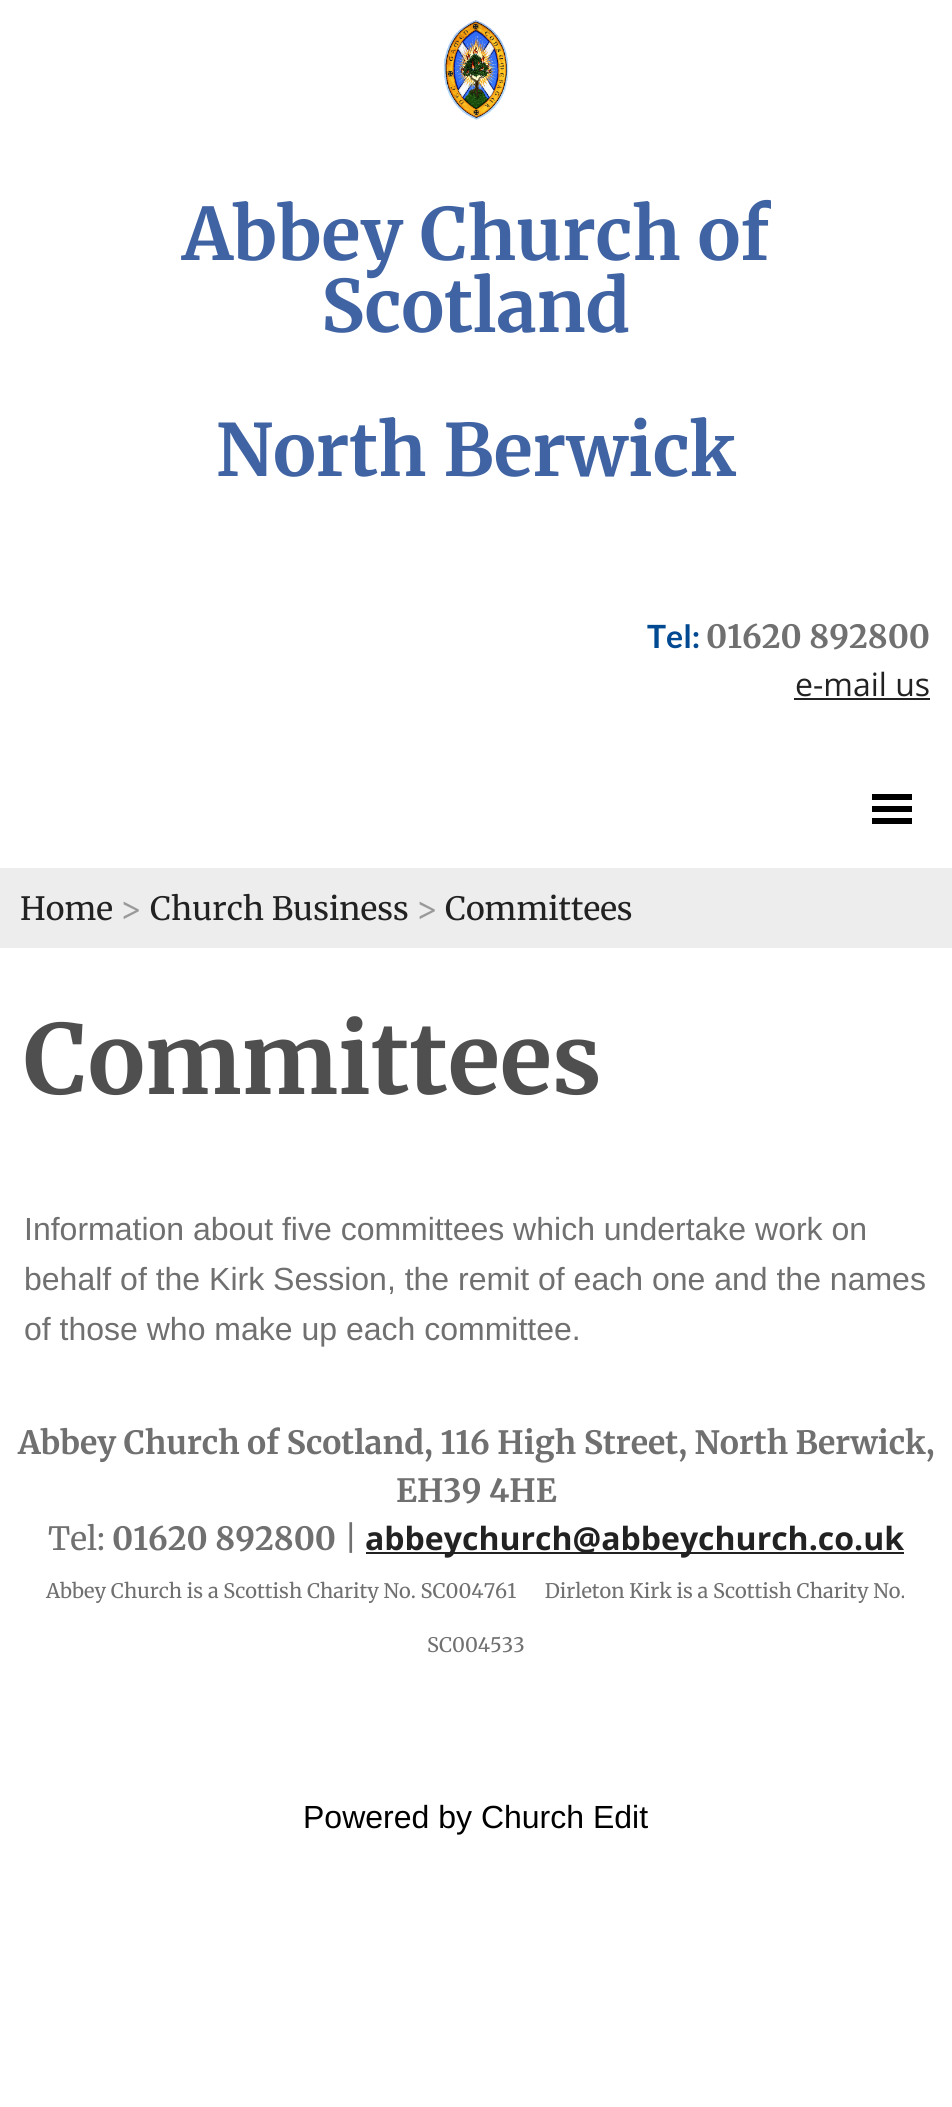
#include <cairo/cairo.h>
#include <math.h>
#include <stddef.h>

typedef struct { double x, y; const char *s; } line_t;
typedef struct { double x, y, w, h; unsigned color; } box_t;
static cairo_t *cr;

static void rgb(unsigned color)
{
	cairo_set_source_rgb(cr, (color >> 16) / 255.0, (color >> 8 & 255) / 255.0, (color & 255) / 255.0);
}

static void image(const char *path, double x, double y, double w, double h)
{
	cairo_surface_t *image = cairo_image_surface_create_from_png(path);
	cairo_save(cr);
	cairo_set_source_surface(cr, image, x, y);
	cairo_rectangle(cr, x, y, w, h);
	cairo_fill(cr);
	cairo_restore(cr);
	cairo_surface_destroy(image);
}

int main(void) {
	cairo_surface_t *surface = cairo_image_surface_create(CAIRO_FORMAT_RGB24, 952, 2107);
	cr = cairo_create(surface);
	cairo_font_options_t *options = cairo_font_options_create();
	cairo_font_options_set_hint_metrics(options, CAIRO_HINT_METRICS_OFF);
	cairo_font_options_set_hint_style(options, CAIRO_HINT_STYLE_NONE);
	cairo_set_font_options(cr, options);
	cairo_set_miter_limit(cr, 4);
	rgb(0xffffff);
	cairo_paint(cr);
	image("img/1.png", 443, 20, 66, 100);
	{
		static const box_t items[] = {
			{794, 698, 136, 2, 0x222222},
			{872, 794, 40, 6, 0x000000},
			{872, 806, 40, 6, 0x000000},
			{872, 818, 40, 6, 0x000000},
			{0, 868, 952, 80, 0xededed},
			{366, 1552, 538, 2, 0x222222},
		};
		for (size_t i = 0; i < sizeof items / sizeof *items; i++) {
			rgb(items[i].color);
			cairo_rectangle(cr, items[i].x, items[i].y, items[i].w, items[i].h);
			cairo_fill(cr);
		}
	}
	cairo_select_font_face(cr, "Merriweather", CAIRO_FONT_SLANT_NORMAL, CAIRO_FONT_WEIGHT_BOLD);
	cairo_set_font_size(cr, 72);
	rgb(0x4063a3);
	{
		static const line_t items[] = {
			{182, 260, "Abbey Church of"},
			{321, 332, "Scotland"},
			{216, 476, "North Berwick"},
		};
		for (size_t i = 0; i < sizeof items / sizeof *items; i++) {
			cairo_move_to(cr, items[i].x, items[i].y);
			cairo_show_text(cr, items[i].s);
		}
	}
	cairo_select_font_face(cr, "Lato", CAIRO_FONT_SLANT_NORMAL, CAIRO_FONT_WEIGHT_BOLD);
	cairo_set_font_size(cr, 32);
	rgb(0x014991);
	cairo_move_to(cr, 647, 648);
	cairo_show_text(cr, "Tel:");
	cairo_select_font_face(cr, "Merriweather", CAIRO_FONT_SLANT_NORMAL, CAIRO_FONT_WEIGHT_BOLD);
	rgb(0x707070);
	cairo_move_to(cr, 706, 648);
	cairo_show_text(cr, "01620 892800");
	cairo_select_font_face(cr, "Open Sans", CAIRO_FONT_SLANT_NORMAL, CAIRO_FONT_WEIGHT_NORMAL);
	rgb(0x222222);
	cairo_move_to(cr, 795, 696);
	cairo_show_text(cr, "e-mail us");
	cairo_select_font_face(cr, "Merriweather", CAIRO_FONT_SLANT_NORMAL, CAIRO_FONT_WEIGHT_NORMAL);
	cairo_move_to(cr, 20, 920);
	cairo_show_text(cr, "Home");
	rgb(0x999999);
	cairo_move_to(cr, 120, 920);
	cairo_show_text(cr, ">");
	rgb(0x222222);
	cairo_move_to(cr, 150, 920);
	cairo_show_text(cr, "Church Business");
	rgb(0x999999);
	cairo_move_to(cr, 416, 920);
	cairo_show_text(cr, ">");
	rgb(0x222222);
	cairo_move_to(cr, 445, 920);
	cairo_show_text(cr, "Committees");
	cairo_select_font_face(cr, "Merriweather", CAIRO_FONT_SLANT_NORMAL, CAIRO_FONT_WEIGHT_BOLD);
	cairo_set_font_size(cr, 96);
	rgb(0x4f4f4f);
	cairo_move_to(cr, 24, 1094);
	cairo_show_text(cr, "Committees");
	cairo_select_font_face(cr, "Liberation Sans", CAIRO_FONT_SLANT_NORMAL, CAIRO_FONT_WEIGHT_NORMAL);
	cairo_set_font_size(cr, 32);
	rgb(0x707070);
	{
		static const line_t items[] = {
			{24, 1240, "Information about five committees which undertake work on"},
			{24, 1290, "behalf of the Kirk Session, the remit of each one and the names"},
			{24, 1340, "of those who make up each committee."},
		};
		for (size_t i = 0; i < sizeof items / sizeof *items; i++) {
			cairo_move_to(cr, items[i].x, items[i].y);
			cairo_show_text(cr, items[i].s);
		}
	}
	cairo_select_font_face(cr, "Merriweather", CAIRO_FONT_SLANT_NORMAL, CAIRO_FONT_WEIGHT_BOLD);
	cairo_move_to(cr, 18, 1454);
	cairo_show_text(cr, "Abbey Church of Scotland, 116 High Street, North Berwick,");
	cairo_move_to(cr, 396, 1502);
	cairo_show_text(cr, "EH39 4HE");
	cairo_select_font_face(cr, "Merriweather", CAIRO_FONT_SLANT_NORMAL, CAIRO_FONT_WEIGHT_NORMAL);
	cairo_move_to(cr, 48, 1550);
	cairo_show_text(cr, "Tel:");
	cairo_select_font_face(cr, "Merriweather", CAIRO_FONT_SLANT_NORMAL, CAIRO_FONT_WEIGHT_BOLD);
	cairo_move_to(cr, 112, 1550);
	cairo_show_text(cr, "01620 892800");
	cairo_select_font_face(cr, "Merriweather", CAIRO_FONT_SLANT_NORMAL, CAIRO_FONT_WEIGHT_NORMAL);
	cairo_move_to(cr, 344, 1550);
	cairo_show_text(cr, "|");
	cairo_select_font_face(cr, "Open Sans", CAIRO_FONT_SLANT_NORMAL, CAIRO_FONT_WEIGHT_BOLD);
	rgb(0x222222);
	cairo_move_to(cr, 365, 1550);
	cairo_show_text(cr, "abbeychurch@abbeychurch.co.uk");
	cairo_select_font_face(cr, "Merriweather", CAIRO_FONT_SLANT_NORMAL, CAIRO_FONT_WEIGHT_NORMAL);
	cairo_set_font_size(cr, 20);
	rgb(0x707070);
	cairo_move_to(cr, 46, 1598);
	cairo_show_text(cr, "Abbey Church is a Scottish Charity No. SC004761      Dirleton Kirk is a Scottish Charity No.");
	cairo_move_to(cr, 427, 1652);
	cairo_show_text(cr, "SC004533");
	cairo_select_font_face(cr, "Liberation Sans", CAIRO_FONT_SLANT_NORMAL, CAIRO_FONT_WEIGHT_NORMAL);
	cairo_set_font_size(cr, 32);
	rgb(0x000000);
	cairo_move_to(cr, 303, 1828);
	cairo_show_text(cr, "Powered by Church Edit");
	cairo_surface_write_to_png(surface, "page.png");
	cairo_font_options_destroy(options);
	cairo_destroy(cr);
	cairo_surface_destroy(surface);
	return 0;
}
